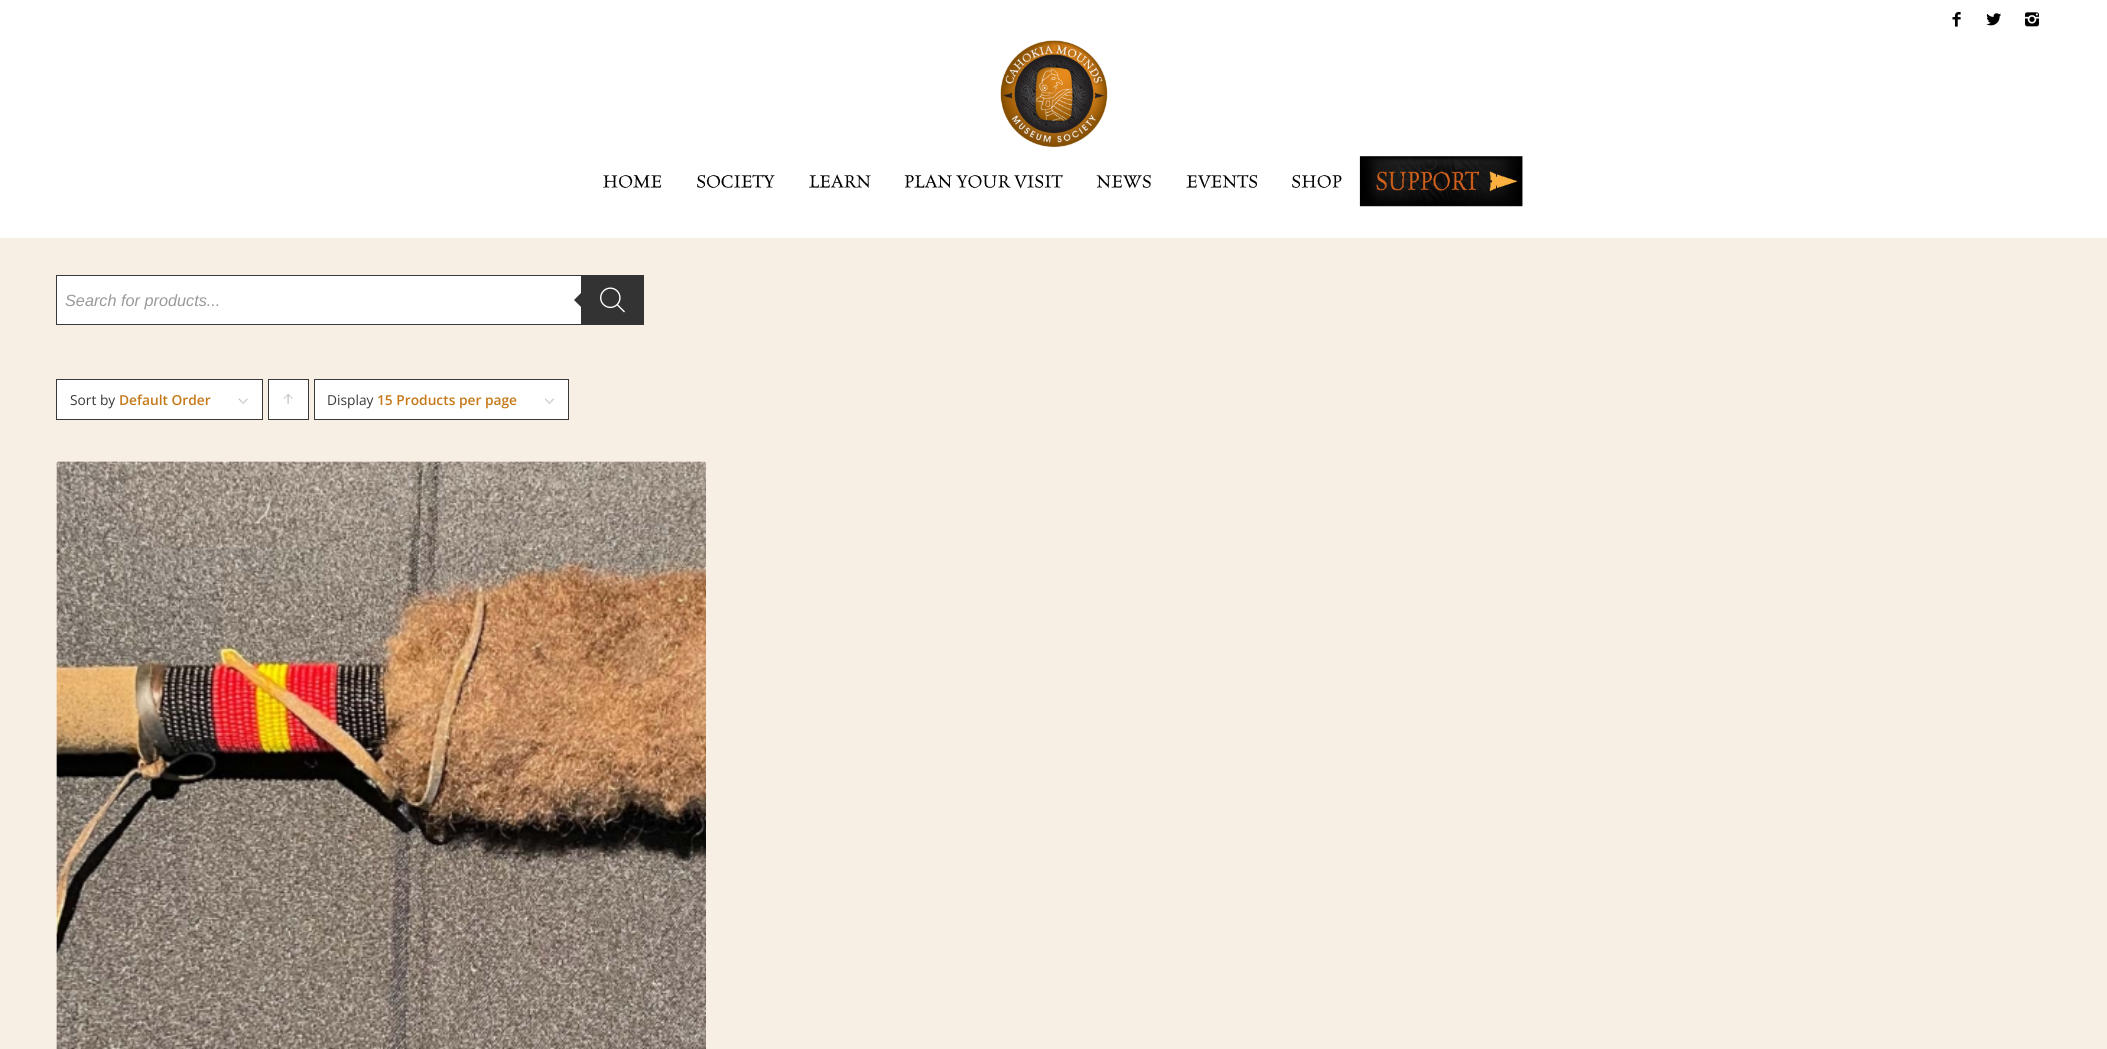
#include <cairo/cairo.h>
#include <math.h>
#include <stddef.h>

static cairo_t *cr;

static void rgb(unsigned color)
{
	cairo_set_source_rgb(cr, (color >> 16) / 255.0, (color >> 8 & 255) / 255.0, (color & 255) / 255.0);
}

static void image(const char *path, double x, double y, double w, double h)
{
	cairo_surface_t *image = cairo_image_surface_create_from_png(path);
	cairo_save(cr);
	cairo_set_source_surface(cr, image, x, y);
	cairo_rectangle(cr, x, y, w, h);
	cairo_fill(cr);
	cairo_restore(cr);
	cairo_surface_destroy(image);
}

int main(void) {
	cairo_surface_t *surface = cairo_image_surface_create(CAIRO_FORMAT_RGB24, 2107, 1049);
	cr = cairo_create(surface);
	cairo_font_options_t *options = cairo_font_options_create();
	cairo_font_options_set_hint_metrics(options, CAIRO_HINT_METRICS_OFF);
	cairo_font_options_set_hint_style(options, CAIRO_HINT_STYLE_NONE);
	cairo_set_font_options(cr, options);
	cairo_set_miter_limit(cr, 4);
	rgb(0xf7eee4);
	cairo_paint(cr);
	rgb(0xffffff);
	cairo_rectangle(cr, 0, 0, 2107, 238);
	cairo_fill(cr);
	image("img/1.png", 1952, 12, 9, 15);
	image("img/2.png", 1986, 13, 15, 13);
	image("img/3.png", 2025, 12, 14, 15);
	image("img/4.png", 1000, 40, 108, 108);
	image("img/5.png", 603, 174, 59, 14);
	image("img/6.png", 697, 174, 78, 14);
	image("img/7.png", 809, 174, 62, 14);
	image("img/8.png", 904, 174, 159, 15);
	image("img/9.png", 1096, 175, 55, 13);
	image("img/10.png", 1186, 174, 71, 15);
	image("img/11.png", 1292, 175, 50, 13);
	image("img/12.png", 1359, 156, 164, 51);
	cairo_rectangle(cr, 57, 276, 524, 48);
	cairo_fill(cr);
	cairo_rectangle(cr, 56.5, 275.5, 587, 49);
	rgb(0x3a393a);
	cairo_set_line_width(cr, 1);
	cairo_stroke(cr);
	rgb(0x333333);
	cairo_new_path(cr);
	cairo_move_to(cr, 581, 275);
	cairo_line_to(cr, 641.5, 275);
	cairo_curve_to(cr, 643, 275, 644, 276, 644, 277.5);
	cairo_line_to(cr, 644, 322.5);
	cairo_curve_to(cr, 644, 324, 643, 325, 641.5, 325);
	cairo_line_to(cr, 581, 325);
	cairo_close_path(cr);
	cairo_fill(cr);
	cairo_new_path(cr);
	cairo_move_to(cr, 584, 290);
	cairo_line_to(cr, 584, 310);
	cairo_line_to(cr, 574, 300);
	cairo_close_path(cr);
	cairo_fill(cr);
	image("img/13.png", 600, 287, 25, 26);
	rgb(0xffffff);
	cairo_rectangle(cr, 57, 380, 205, 39);
	cairo_fill(cr);
	image("img/14.png", 238, 398, 10, 6);
	cairo_rectangle(cr, 56.5, 379.5, 206, 40);
	rgb(0x3a393a);
	cairo_stroke(cr);
	rgb(0xffffff);
	cairo_rectangle(cr, 269, 380, 39, 39);
	cairo_fill(cr);
	image("img/15.png", 283, 393, 10, 11);
	cairo_rectangle(cr, 268.5, 379.5, 40, 40);
	rgb(0x3a393a);
	cairo_stroke(cr);
	rgb(0xffffff);
	cairo_rectangle(cr, 315, 380, 253, 39);
	cairo_fill(cr);
	image("img/16.png", 545, 398, 9, 6);
	cairo_rectangle(cr, 314.5, 379.5, 254, 40);
	rgb(0x3a393a);
	cairo_stroke(cr);
	image("img/17.png", 56, 461, 650, 588);
	cairo_select_font_face(cr, "Liberation Sans", CAIRO_FONT_SLANT_ITALIC, CAIRO_FONT_WEIGHT_NORMAL);
	cairo_set_font_size(cr, 16.25);
	rgb(0x999999);
	cairo_move_to(cr, 65, 306);
	cairo_show_text(cr, "Search for products...");
	cairo_select_font_face(cr, "Open Sans", CAIRO_FONT_SLANT_NORMAL, CAIRO_FONT_WEIGHT_NORMAL);
	cairo_set_font_size(cr, 13.75);
	rgb(0x3a393a);
	cairo_move_to(cr, 70, 405);
	cairo_show_text(cr, "Sort by");
	cairo_select_font_face(cr, "Open Sans SemiBold", CAIRO_FONT_SLANT_NORMAL, CAIRO_FONT_WEIGHT_NORMAL);
	rgb(0xc67819);
	cairo_move_to(cr, 119, 405);
	cairo_show_text(cr, "Default Order");
	cairo_select_font_face(cr, "Open Sans", CAIRO_FONT_SLANT_NORMAL, CAIRO_FONT_WEIGHT_NORMAL);
	rgb(0x3a393a);
	cairo_move_to(cr, 327, 405);
	cairo_show_text(cr, "Display");
	cairo_select_font_face(cr, "Open Sans SemiBold", CAIRO_FONT_SLANT_NORMAL, CAIRO_FONT_WEIGHT_NORMAL);
	rgb(0xc67819);
	cairo_move_to(cr, 377, 405);
	cairo_show_text(cr, "15 Products per page");
	cairo_surface_write_to_png(surface, "page.png");
	cairo_font_options_destroy(options);
	cairo_destroy(cr);
	cairo_surface_destroy(surface);
	return 0;
}
